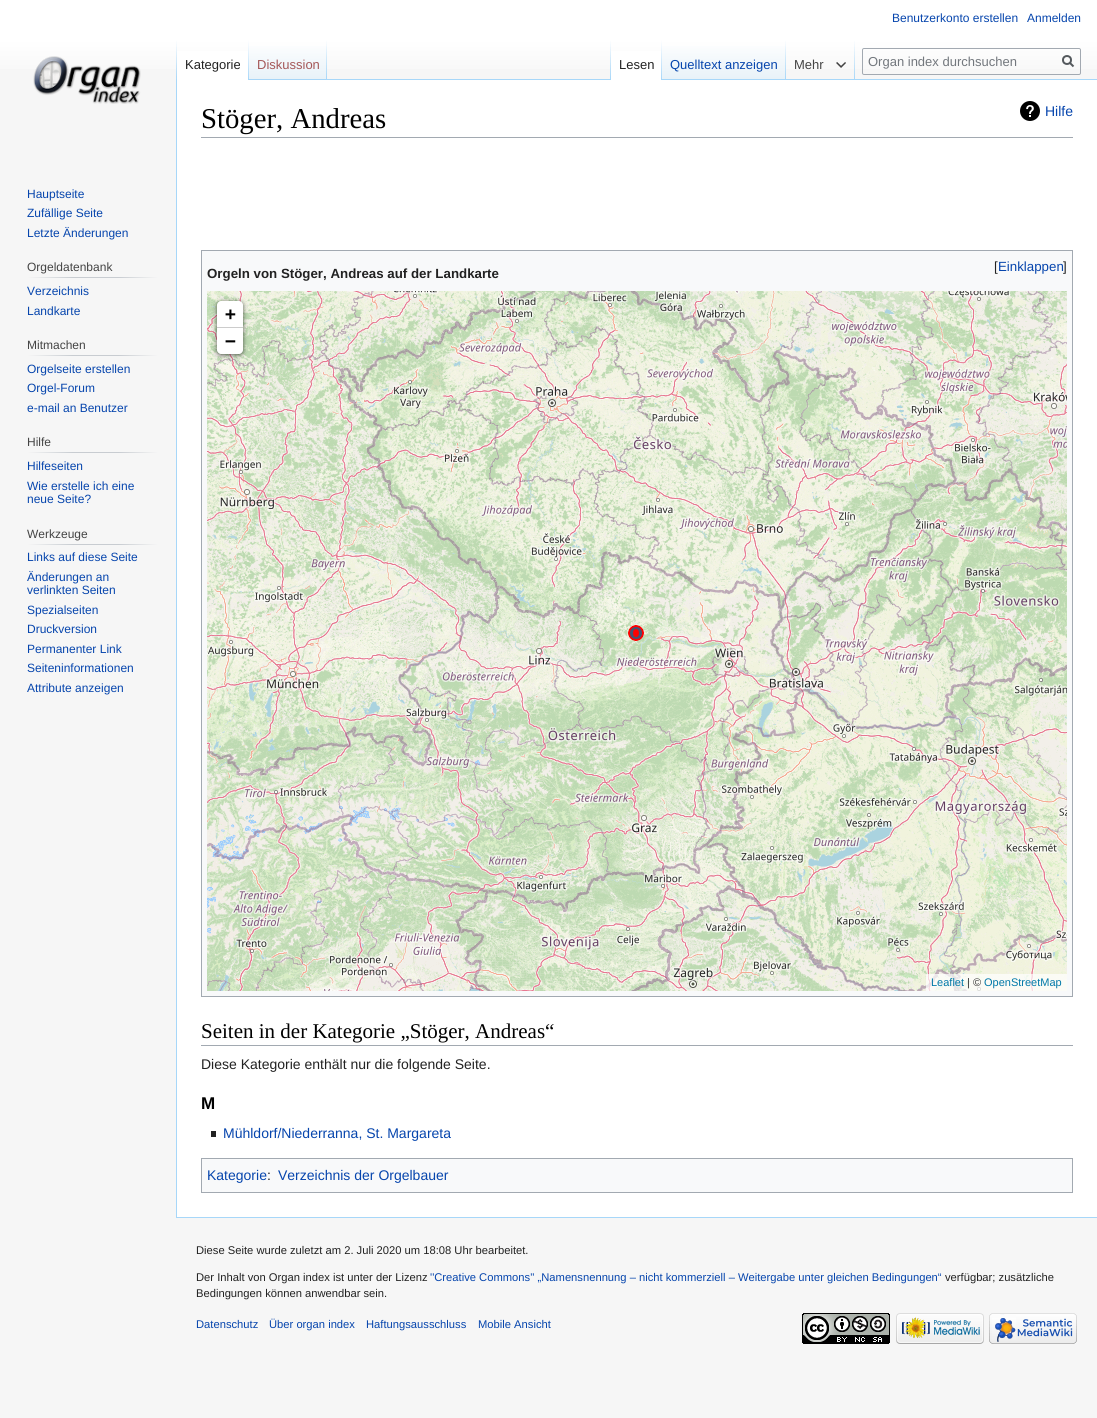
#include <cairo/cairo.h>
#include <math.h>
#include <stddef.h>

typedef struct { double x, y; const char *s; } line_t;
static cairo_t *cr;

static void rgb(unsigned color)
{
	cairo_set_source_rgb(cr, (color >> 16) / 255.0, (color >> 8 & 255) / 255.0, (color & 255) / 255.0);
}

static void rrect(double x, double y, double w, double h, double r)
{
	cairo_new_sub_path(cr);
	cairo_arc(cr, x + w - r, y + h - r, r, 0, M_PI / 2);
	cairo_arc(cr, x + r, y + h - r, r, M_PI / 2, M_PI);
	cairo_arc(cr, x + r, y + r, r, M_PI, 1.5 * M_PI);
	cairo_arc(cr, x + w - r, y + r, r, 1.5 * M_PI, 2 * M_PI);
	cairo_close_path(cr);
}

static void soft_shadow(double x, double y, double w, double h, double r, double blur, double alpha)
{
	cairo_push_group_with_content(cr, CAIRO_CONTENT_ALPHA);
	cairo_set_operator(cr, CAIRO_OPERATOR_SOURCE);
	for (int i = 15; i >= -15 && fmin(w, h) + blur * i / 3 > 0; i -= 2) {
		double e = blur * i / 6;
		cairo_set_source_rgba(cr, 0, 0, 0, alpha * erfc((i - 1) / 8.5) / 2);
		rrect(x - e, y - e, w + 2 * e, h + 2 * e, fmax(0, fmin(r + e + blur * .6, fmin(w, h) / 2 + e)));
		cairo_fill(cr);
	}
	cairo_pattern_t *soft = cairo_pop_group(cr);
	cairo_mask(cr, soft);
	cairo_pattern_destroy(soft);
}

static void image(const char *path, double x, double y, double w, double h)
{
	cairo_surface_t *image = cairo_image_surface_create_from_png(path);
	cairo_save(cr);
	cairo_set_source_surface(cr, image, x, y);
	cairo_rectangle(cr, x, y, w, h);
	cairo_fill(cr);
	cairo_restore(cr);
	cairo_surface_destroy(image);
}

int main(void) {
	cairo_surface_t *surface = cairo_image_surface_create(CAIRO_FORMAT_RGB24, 1097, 1418);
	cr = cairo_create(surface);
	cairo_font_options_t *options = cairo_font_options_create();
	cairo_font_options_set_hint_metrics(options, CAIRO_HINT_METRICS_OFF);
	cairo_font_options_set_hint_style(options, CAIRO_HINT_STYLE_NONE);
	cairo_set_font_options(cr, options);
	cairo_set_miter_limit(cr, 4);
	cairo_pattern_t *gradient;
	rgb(0xf6f6f6);
	cairo_paint(cr);
	gradient = cairo_pattern_create_linear(549, 0, 549, 80);
	cairo_pattern_add_color_stop_rgba(gradient, 0.5, 1, 1, 1, 1);
	cairo_pattern_add_color_stop_rgba(gradient, 1, 0.965, 0.965, 0.965, 1);
	cairo_set_source(cr, gradient);
	cairo_pattern_destroy(gradient);
	cairo_rectangle(cr, 0, 0, 1097, 69);
	cairo_fill(cr);
	rgb(0xa7d7f9);
	cairo_rectangle(cr, 176, 1217, 921, 1);
	cairo_fill(cr);
	cairo_rectangle(cr, 176, 79, 1, 1139);
	cairo_fill(cr);
	gradient = cairo_pattern_create_linear(177, 40, 177, 80);
	cairo_pattern_add_color_stop_rgba(gradient, 0, 0.655, 0.843, 0.976, 0);
	cairo_pattern_add_color_stop_rgba(gradient, 1, 0.655, 0.843, 0.976, 1);
	cairo_set_source(cr, gradient);
	cairo_pattern_destroy(gradient);
	cairo_rectangle(cr, 176, 40, 1, 40);
	cairo_fill(cr);
	rgb(0xffffff);
	cairo_rectangle(cr, 177, 51, 71, 29);
	cairo_fill(cr);
	gradient = cairo_pattern_create_linear(249, 40, 249, 80);
	cairo_pattern_add_color_stop_rgba(gradient, 0, 1, 1, 1, 1);
	cairo_pattern_add_color_stop_rgba(gradient, 1, 0.655, 0.843, 0.976, 1);
	cairo_set_source(cr, gradient);
	cairo_pattern_destroy(gradient);
	cairo_rectangle(cr, 248, 40, 1, 40);
	cairo_fill(cr);
	gradient = cairo_pattern_create_linear(288, 80, 288, 40);
	cairo_pattern_add_color_stop_rgba(gradient, 0, 0.467, 0.757, 0.965, 1);
	cairo_pattern_add_color_stop_rgba(gradient, 0.03, 0.91, 0.949, 0.973, 1);
	cairo_pattern_add_color_stop_rgba(gradient, 1, 1, 1, 1, 1);
	cairo_set_source(cr, gradient);
	cairo_pattern_destroy(gradient);
	cairo_rectangle(cr, 249, 46, 78, 34);
	cairo_fill(cr);
	gradient = cairo_pattern_create_linear(327, 40, 327, 80);
	cairo_pattern_add_color_stop_rgba(gradient, 0, 0.655, 0.843, 0.976, 0);
	cairo_pattern_add_color_stop_rgba(gradient, 1, 0.655, 0.843, 0.976, 1);
	cairo_set_source(cr, gradient);
	cairo_pattern_destroy(gradient);
	cairo_rectangle(cr, 326, 40, 1, 40);
	cairo_fill(cr);
	rgb(0xa7d7f9);
	cairo_rectangle(cr, 327, 79, 770, 1);
	cairo_fill(cr);
	gradient = cairo_pattern_create_linear(611, 40, 611, 80);
	cairo_pattern_add_color_stop_rgba(gradient, 0, 0.655, 0.843, 0.976, 0);
	cairo_pattern_add_color_stop_rgba(gradient, 1, 0.655, 0.843, 0.976, 1);
	cairo_set_source(cr, gradient);
	cairo_pattern_destroy(gradient);
	cairo_rectangle(cr, 610, 40, 1, 40);
	cairo_fill(cr);
	rgb(0xffffff);
	cairo_rectangle(cr, 611, 51, 50, 29);
	cairo_fill(cr);
	gradient = cairo_pattern_create_linear(662, 40, 662, 80);
	cairo_pattern_add_color_stop_rgba(gradient, 0, 1, 1, 1, 1);
	cairo_pattern_add_color_stop_rgba(gradient, 1, 0.655, 0.843, 0.976, 1);
	cairo_set_source(cr, gradient);
	cairo_pattern_destroy(gradient);
	cairo_rectangle(cr, 661, 40, 1, 40);
	cairo_fill(cr);
	gradient = cairo_pattern_create_linear(724, 80, 724, 40);
	cairo_pattern_add_color_stop_rgba(gradient, 0, 0.467, 0.757, 0.965, 1);
	cairo_pattern_add_color_stop_rgba(gradient, 0.03, 0.91, 0.949, 0.973, 1);
	cairo_pattern_add_color_stop_rgba(gradient, 1, 1, 1, 1, 1);
	cairo_set_source(cr, gradient);
	cairo_pattern_destroy(gradient);
	cairo_rectangle(cr, 662, 46, 124, 33);
	cairo_fill(cr);
	gradient = cairo_pattern_create_linear(786, 40, 786, 80);
	cairo_pattern_add_color_stop_rgba(gradient, 0, 0.655, 0.843, 0.976, 0);
	cairo_pattern_add_color_stop_rgba(gradient, 1, 0.655, 0.843, 0.976, 1);
	cairo_set_source(cr, gradient);
	cairo_pattern_destroy(gradient);
	cairo_rectangle(cr, 785, 40, 1, 40);
	cairo_fill(cr);
	gradient = cairo_pattern_create_linear(855, 40, 855, 80);
	cairo_pattern_add_color_stop_rgba(gradient, 0, 0.655, 0.843, 0.976, 0);
	cairo_pattern_add_color_stop_rgba(gradient, 1, 0.655, 0.843, 0.976, 1);
	cairo_set_source(cr, gradient);
	cairo_pattern_destroy(gradient);
	cairo_rectangle(cr, 854, 40, 1, 40);
	cairo_fill(cr);
	image("img/1.png", 836, 62, 10, 6);
	rrect(862.5, 48.5, 218, 26, 1.5);
	rgb(0xa2a9b1);
	cairo_set_line_width(cr, 1);
	cairo_stroke(cr);
	cairo_new_path(cr);
	cairo_move_to(cr, 1073.5, 66.5);
	cairo_line_to(cr, 1069.5, 62.5);
	rgb(0x54595d);
	cairo_set_line_width(cr, 2);
	cairo_stroke(cr);
	cairo_arc(cr, 1067, 60, 4, 0, 2 * M_PI);
	cairo_stroke(cr);
	image("img/2.png", 33, 56, 108, 48);
	gradient = cairo_pattern_create_linear(27, 278, 158, 278);
	cairo_pattern_add_color_stop_rgba(gradient, 0, 0.965, 0.965, 0.965, 1);
	cairo_pattern_add_color_stop_rgba(gradient, 0.35, 0.784, 0.8, 0.82, 1);
	cairo_pattern_add_color_stop_rgba(gradient, 0.7, 0.784, 0.8, 0.82, 1);
	cairo_pattern_add_color_stop_rgba(gradient, 1, 0.965, 0.965, 0.965, 1);
	cairo_set_source(cr, gradient);
	cairo_pattern_destroy(gradient);
	cairo_rectangle(cr, 27, 277, 131, 1);
	cairo_fill(cr);
	gradient = cairo_pattern_create_linear(27, 356, 158, 356);
	cairo_pattern_add_color_stop_rgba(gradient, 0, 0.965, 0.965, 0.965, 1);
	cairo_pattern_add_color_stop_rgba(gradient, 0.35, 0.784, 0.8, 0.82, 1);
	cairo_pattern_add_color_stop_rgba(gradient, 0.7, 0.784, 0.8, 0.82, 1);
	cairo_pattern_add_color_stop_rgba(gradient, 1, 0.965, 0.965, 0.965, 1);
	cairo_set_source(cr, gradient);
	cairo_pattern_destroy(gradient);
	cairo_rectangle(cr, 27, 355, 131, 1);
	cairo_fill(cr);
	gradient = cairo_pattern_create_linear(27, 453, 158, 453);
	cairo_pattern_add_color_stop_rgba(gradient, 0, 0.965, 0.965, 0.965, 1);
	cairo_pattern_add_color_stop_rgba(gradient, 0.35, 0.784, 0.8, 0.82, 1);
	cairo_pattern_add_color_stop_rgba(gradient, 0.7, 0.784, 0.8, 0.82, 1);
	cairo_pattern_add_color_stop_rgba(gradient, 1, 0.965, 0.965, 0.965, 1);
	cairo_set_source(cr, gradient);
	cairo_pattern_destroy(gradient);
	cairo_rectangle(cr, 27, 452, 131, 1);
	cairo_fill(cr);
	gradient = cairo_pattern_create_linear(27, 545, 158, 545);
	cairo_pattern_add_color_stop_rgba(gradient, 0, 0.965, 0.965, 0.965, 1);
	cairo_pattern_add_color_stop_rgba(gradient, 0.35, 0.784, 0.8, 0.82, 1);
	cairo_pattern_add_color_stop_rgba(gradient, 0.7, 0.784, 0.8, 0.82, 1);
	cairo_pattern_add_color_stop_rgba(gradient, 1, 0.965, 0.965, 0.965, 1);
	cairo_set_source(cr, gradient);
	cairo_pattern_destroy(gradient);
	cairo_rectangle(cr, 27, 544, 131, 1);
	cairo_fill(cr);
	rgb(0xffffff);
	cairo_rectangle(cr, 177, 80, 920, 1137);
	cairo_fill(cr);
	rgb(0xa2a9b1);
	cairo_rectangle(cr, 201, 137, 872, 1);
	cairo_fill(cr);
	image("img/3.png", 1020, 101, 20, 20);
	rgb(0xf8f9fa);
	cairo_rectangle(cr, 201.5, 250.5, 871, 746);
	cairo_fill_preserve(cr);
	rgb(0xa2a9b1);
	cairo_set_line_width(cr, 1);
	cairo_stroke(cr);
	image("img/4.png", 207, 291, 56, 19);
	image("img/5.png", 263, 291, 256, 19);
	image("img/6.png", 519, 291, 256, 19);
	image("img/7.png", 775, 291, 256, 19);
	image("img/8.png", 1031, 291, 36, 19);
	image("img/9.png", 207, 310, 56, 256);
	image("img/10.png", 263, 310, 256, 256);
	image("img/11.png", 519, 310, 256, 256);
	image("img/12.png", 775, 310, 256, 256);
	image("img/13.png", 1031, 310, 36, 256);
	image("img/14.png", 207, 566, 56, 256);
	image("img/15.png", 263, 566, 256, 256);
	image("img/16.png", 519, 566, 256, 256);
	image("img/17.png", 775, 566, 256, 256);
	image("img/18.png", 1031, 566, 36, 256);
	image("img/19.png", 207, 822, 56, 169);
	image("img/20.png", 263, 822, 256, 169);
	image("img/21.png", 519, 822, 256, 169);
	image("img/22.png", 775, 822, 256, 169);
	image("img/23.png", 1031, 822, 36, 169);
	image("img/24.png", 628, 625, 16, 16);
	rgb(0x000000);
	soft_shadow(217, 302, 26, 53, 4, 2.5, 0.65);
	rgb(0xffffff);
	cairo_new_path(cr);
	cairo_move_to(cr, 221, 301);
	cairo_line_to(cr, 239, 301);
	cairo_curve_to(cr, 241, 301, 243, 303, 243, 305);
	cairo_line_to(cr, 243, 328);
	cairo_line_to(cr, 217, 328);
	cairo_line_to(cr, 217, 305);
	cairo_curve_to(cr, 217, 303, 219, 301, 221, 301);
	cairo_close_path(cr);
	cairo_fill(cr);
	rgb(0xcccccc);
	cairo_rectangle(cr, 217, 327, 26, 1);
	cairo_fill(cr);
	rgb(0xffffff);
	cairo_new_path(cr);
	cairo_move_to(cr, 217, 328);
	cairo_line_to(cr, 243, 328);
	cairo_line_to(cr, 243, 350);
	cairo_curve_to(cr, 243, 352, 241, 354, 239, 354);
	cairo_line_to(cr, 221, 354);
	cairo_curve_to(cr, 219, 354, 217, 352, 217, 350);
	cairo_close_path(cr);
	cairo_fill(cr);
	cairo_set_source_rgba(cr, 1, 1, 1, 0.7);
	cairo_rectangle(cr, 926, 974, 141, 17);
	cairo_fill(cr);
	rgb(0xa2a9b1);
	cairo_rectangle(cr, 201, 1045, 872, 1);
	cairo_fill(cr);
	rgb(0x222222);
	cairo_rectangle(cr, 211, 1131, 5, 6);
	cairo_fill(cr);
	rgb(0xf8f9fa);
	cairo_rectangle(cr, 201.5, 1158.5, 871, 34);
	cairo_fill_preserve(cr);
	rgb(0xa2a9b1);
	cairo_stroke(cr);
	image("img/25.png", 802, 1313, 88, 31);
	image("img/26.png", 896, 1313, 88, 31);
	image("img/27.png", 989, 1313, 88, 31);
	cairo_select_font_face(cr, "Liberation Sans", CAIRO_FONT_SLANT_NORMAL, CAIRO_FONT_WEIGHT_NORMAL);
	cairo_set_font_size(cr, 12);
	rgb(0x0645ad);
	cairo_move_to(cr, 892, 22);
	cairo_show_text(cr, "Benutzerkonto erstellen");
	cairo_move_to(cr, 1027, 22);
	cairo_show_text(cr, "Anmelden");
	cairo_set_font_size(cr, 13);
	rgb(0x222222);
	cairo_move_to(cr, 185, 69);
	cairo_show_text(cr, "Kategorie");
	rgb(0xa55858);
	cairo_move_to(cr, 257, 69);
	cairo_show_text(cr, "Diskussion");
	rgb(0x222222);
	cairo_move_to(cr, 619, 69);
	cairo_show_text(cr, "Lesen");
	rgb(0x0645ad);
	cairo_move_to(cr, 670, 69);
	cairo_show_text(cr, "Quelltext anzeigen");
	rgb(0x444444);
	cairo_move_to(cr, 794, 69);
	cairo_show_text(cr, "Mehr");
	rgb(0x72777d);
	cairo_move_to(cr, 868, 66);
	cairo_show_text(cr, "Organ index durchsuchen");
	cairo_set_font_size(cr, 12);
	rgb(0x0645ad);
	{
		static const line_t items[] = {
			{27, 198, "Hauptseite"},
			{27, 217, "Zufällige Seite"},
			{27, 237, "Letzte Änderungen"},
		};
		for (size_t i = 0; i < sizeof items / sizeof *items; i++) {
			cairo_move_to(cr, items[i].x, items[i].y);
			cairo_show_text(cr, items[i].s);
		}
	}
	rgb(0x444444);
	cairo_move_to(cr, 27, 271);
	cairo_show_text(cr, "Orgeldatenbank");
	rgb(0x0645ad);
	cairo_move_to(cr, 27, 295);
	cairo_show_text(cr, "Verzeichnis");
	cairo_move_to(cr, 27, 315);
	cairo_show_text(cr, "Landkarte");
	rgb(0x444444);
	cairo_move_to(cr, 27, 349);
	cairo_show_text(cr, "Mitmachen");
	rgb(0x0645ad);
	{
		static const line_t items[] = {
			{27, 373, "Orgelseite erstellen"},
			{27, 392, "Orgel-Forum"},
			{27, 412, "e-mail an Benutzer"},
		};
		for (size_t i = 0; i < sizeof items / sizeof *items; i++) {
			cairo_move_to(cr, items[i].x, items[i].y);
			cairo_show_text(cr, items[i].s);
		}
	}
	rgb(0x444444);
	cairo_move_to(cr, 27, 446);
	cairo_show_text(cr, "Hilfe");
	rgb(0x0645ad);
	{
		static const line_t items[] = {
			{27, 470, "Hilfeseiten"},
			{27, 490, "Wie erstelle ich eine"},
			{27, 503, "neue Seite?"},
		};
		for (size_t i = 0; i < sizeof items / sizeof *items; i++) {
			cairo_move_to(cr, items[i].x, items[i].y);
			cairo_show_text(cr, items[i].s);
		}
	}
	rgb(0x444444);
	cairo_move_to(cr, 27, 538);
	cairo_show_text(cr, "Werkzeuge");
	rgb(0x0645ad);
	{
		static const line_t items[] = {
			{27, 561, "Links auf diese Seite"},
			{27, 581, "Änderungen an"},
			{27, 594, "verlinkten Seiten"},
			{27, 614, "Spezialseiten"},
			{27, 633, "Druckversion"},
			{27, 653, "Permanenter Link"},
			{27, 672, "Seiteninformationen"},
			{27, 692, "Attribute anzeigen"},
		};
		for (size_t i = 0; i < sizeof items / sizeof *items; i++) {
			cairo_move_to(cr, items[i].x, items[i].y);
			cairo_show_text(cr, items[i].s);
		}
	}
	cairo_select_font_face(cr, "Liberation Serif", CAIRO_FONT_SLANT_NORMAL, CAIRO_FONT_WEIGHT_NORMAL);
	cairo_set_font_size(cr, 28.75);
	rgb(0x000000);
	cairo_move_to(cr, 201, 128);
	cairo_show_text(cr, "Stöger, Andreas");
	cairo_select_font_face(cr, "Liberation Sans", CAIRO_FONT_SLANT_NORMAL, CAIRO_FONT_WEIGHT_NORMAL);
	cairo_set_font_size(cr, 14);
	rgb(0x0645ad);
	cairo_move_to(cr, 1045, 116);
	cairo_show_text(cr, "Hilfe");
	cairo_select_font_face(cr, "Liberation Sans", CAIRO_FONT_SLANT_NORMAL, CAIRO_FONT_WEIGHT_BOLD);
	cairo_set_font_size(cr, 13.3);
	rgb(0x222222);
	cairo_move_to(cr, 207, 278);
	cairo_show_text(cr, "Orgeln von Stöger, Andreas auf der Landkarte");
	cairo_select_font_face(cr, "Liberation Sans", CAIRO_FONT_SLANT_NORMAL, CAIRO_FONT_WEIGHT_NORMAL);
	cairo_move_to(cr, 994, 271);
	cairo_show_text(cr, "[");
	rgb(0x0645ad);
	cairo_move_to(cr, 998, 271);
	cairo_show_text(cr, "Einklappen");
	rgb(0x222222);
	cairo_move_to(cr, 1063, 271);
	cairo_show_text(cr, "]");
	cairo_select_font_face(cr, "DejaVu Sans Mono", CAIRO_FONT_SLANT_NORMAL, CAIRO_FONT_WEIGHT_BOLD);
	cairo_set_font_size(cr, 18);
	rgb(0x000000);
	cairo_move_to(cr, 225, 320);
	cairo_show_text(cr, "+");
	cairo_move_to(cr, 225, 347);
	cairo_show_text(cr, "−");
	cairo_select_font_face(cr, "Liberation Sans", CAIRO_FONT_SLANT_NORMAL, CAIRO_FONT_WEIGHT_NORMAL);
	cairo_set_font_size(cr, 11);
	rgb(0x0078a8);
	cairo_move_to(cr, 931, 986);
	cairo_show_text(cr, "Leaflet");
	rgb(0x333333);
	cairo_move_to(cr, 967, 986);
	cairo_show_text(cr, "| ©");
	rgb(0x0078a8);
	cairo_move_to(cr, 984, 986);
	cairo_show_text(cr, "OpenStreetMap");
	cairo_select_font_face(cr, "Liberation Serif", CAIRO_FONT_SLANT_NORMAL, CAIRO_FONT_WEIGHT_NORMAL);
	cairo_set_font_size(cr, 21);
	rgb(0x000000);
	cairo_move_to(cr, 201, 1038);
	cairo_show_text(cr, "Seiten in der Kategorie „Stöger, Andreas“");
	cairo_select_font_face(cr, "Liberation Sans", CAIRO_FONT_SLANT_NORMAL, CAIRO_FONT_WEIGHT_NORMAL);
	cairo_set_font_size(cr, 14);
	rgb(0x222222);
	cairo_move_to(cr, 201, 1069);
	cairo_show_text(cr, "Diese Kategorie enthält nur die folgende Seite.");
	cairo_select_font_face(cr, "Liberation Sans", CAIRO_FONT_SLANT_NORMAL, CAIRO_FONT_WEIGHT_BOLD);
	cairo_set_font_size(cr, 17);
	rgb(0x000000);
	cairo_move_to(cr, 201, 1109);
	cairo_show_text(cr, "M");
	cairo_select_font_face(cr, "Liberation Sans", CAIRO_FONT_SLANT_NORMAL, CAIRO_FONT_WEIGHT_NORMAL);
	cairo_set_font_size(cr, 14);
	rgb(0x0645ad);
	cairo_move_to(cr, 223, 1138);
	cairo_show_text(cr, "Mühldorf/Niederranna, St. Margareta");
	cairo_move_to(cr, 207, 1180);
	cairo_show_text(cr, "Kategorie");
	rgb(0x222222);
	cairo_move_to(cr, 267, 1180);
	cairo_show_text(cr, ":");
	rgb(0x0645ad);
	cairo_move_to(cr, 278, 1180);
	cairo_show_text(cr, "Verzeichnis der Orgelbauer");
	cairo_set_font_size(cr, 11.2);
	rgb(0x222222);
	cairo_move_to(cr, 196, 1254);
	cairo_show_text(cr, "Diese Seite wurde zuletzt am 2. Juli 2020 um 18:08 Uhr bearbeitet.");
	cairo_move_to(cr, 196, 1281);
	cairo_show_text(cr, "Der Inhalt von Organ index ist unter der Lizenz");
	rgb(0x0645ad);
	cairo_move_to(cr, 430, 1281);
	cairo_show_text(cr, "''Creative Commons'' „Namensnennung – nicht kommerziell – Weitergabe unter gleichen Bedingungen“");
	rgb(0x222222);
	cairo_move_to(cr, 945, 1281);
	cairo_show_text(cr, "verfügbar; zusätzliche");
	cairo_move_to(cr, 196, 1297);
	cairo_show_text(cr, "Bedingungen können anwendbar sein.");
	rgb(0x0645ad);
	{
		static const line_t items[] = {
			{196, 1328, "Datenschutz"},
			{269, 1328, "Über organ index"},
			{366, 1328, "Haftungsausschluss"},
			{478, 1328, "Mobile Ansicht"},
		};
		for (size_t i = 0; i < sizeof items / sizeof *items; i++) {
			cairo_move_to(cr, items[i].x, items[i].y);
			cairo_show_text(cr, items[i].s);
		}
	}
	cairo_surface_write_to_png(surface, "page.png");
	cairo_font_options_destroy(options);
	cairo_destroy(cr);
	cairo_surface_destroy(surface);
	return 0;
}
